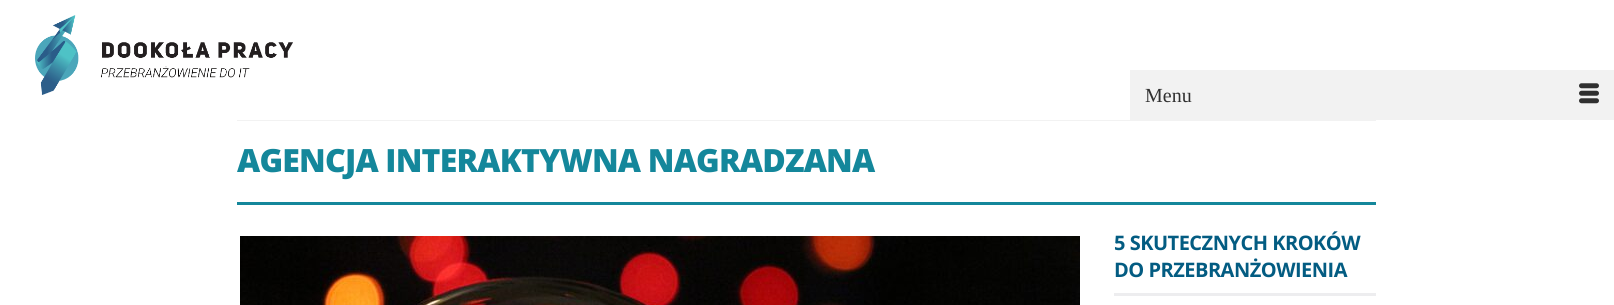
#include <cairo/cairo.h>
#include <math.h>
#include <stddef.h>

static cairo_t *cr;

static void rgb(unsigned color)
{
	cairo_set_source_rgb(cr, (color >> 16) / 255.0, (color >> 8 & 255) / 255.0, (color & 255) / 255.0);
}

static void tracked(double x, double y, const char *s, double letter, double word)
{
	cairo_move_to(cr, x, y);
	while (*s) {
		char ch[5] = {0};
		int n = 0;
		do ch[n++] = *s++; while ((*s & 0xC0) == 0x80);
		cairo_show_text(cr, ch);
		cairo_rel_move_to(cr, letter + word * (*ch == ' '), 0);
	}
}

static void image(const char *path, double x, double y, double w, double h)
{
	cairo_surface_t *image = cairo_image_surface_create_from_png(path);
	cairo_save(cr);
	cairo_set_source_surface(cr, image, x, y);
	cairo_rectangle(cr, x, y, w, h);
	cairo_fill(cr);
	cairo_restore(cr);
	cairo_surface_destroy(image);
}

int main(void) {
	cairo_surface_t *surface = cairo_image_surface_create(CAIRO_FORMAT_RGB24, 1614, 305);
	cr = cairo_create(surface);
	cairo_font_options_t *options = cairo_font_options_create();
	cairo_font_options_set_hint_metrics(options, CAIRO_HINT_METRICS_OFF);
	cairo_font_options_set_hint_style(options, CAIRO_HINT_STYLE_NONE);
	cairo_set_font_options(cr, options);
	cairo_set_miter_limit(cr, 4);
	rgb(0xffffff);
	cairo_paint(cr);
	image("img/1.png", 35, 15, 258, 80);
	rgb(0xf2f2f2);
	cairo_rectangle(cr, 1130, 70, 484, 50);
	cairo_fill(cr);
	image("img/2.png", 1579, 83, 20, 21);
	cairo_rectangle(cr, 237, 120, 1139, 1);
	cairo_fill(cr);
	rgb(0x14879b);
	cairo_rectangle(cr, 237, 202, 1139, 3);
	cairo_fill(cr);
	image("img/3.png", 240, 236, 840, 69);
	rgb(0xededef);
	cairo_rectangle(cr, 1114, 293, 262, 3);
	cairo_fill(cr);
	cairo_select_font_face(cr, "Liberation Serif", CAIRO_FONT_SLANT_NORMAL, CAIRO_FONT_WEIGHT_NORMAL);
	cairo_set_font_size(cr, 20);
	rgb(0x303030);
	cairo_move_to(cr, 1145, 102);
	cairo_show_text(cr, "Menu");
	cairo_select_font_face(cr, "Open Sans ExtraBold", CAIRO_FONT_SLANT_NORMAL, CAIRO_FONT_WEIGHT_NORMAL);
	cairo_set_font_size(cr, 32);
	rgb(0x14879b);
	tracked(237, 172, "AGENCJA INTERAKTYWNA NAGRADZANA", -0.8, 0);
	cairo_select_font_face(cr, "Open Sans", CAIRO_FONT_SLANT_NORMAL, CAIRO_FONT_WEIGHT_BOLD);
	cairo_set_font_size(cr, 20);
	rgb(0x035c82);
	tracked(1114, 250, "5 SKUTECZNYCH KROKÓW", -0.5, 0);
	tracked(1114, 277, "DO PRZEBRANŻOWIENIA", -0.5, 0);
	cairo_surface_write_to_png(surface, "page.png");
	cairo_font_options_destroy(options);
	cairo_destroy(cr);
	cairo_surface_destroy(surface);
	return 0;
}
